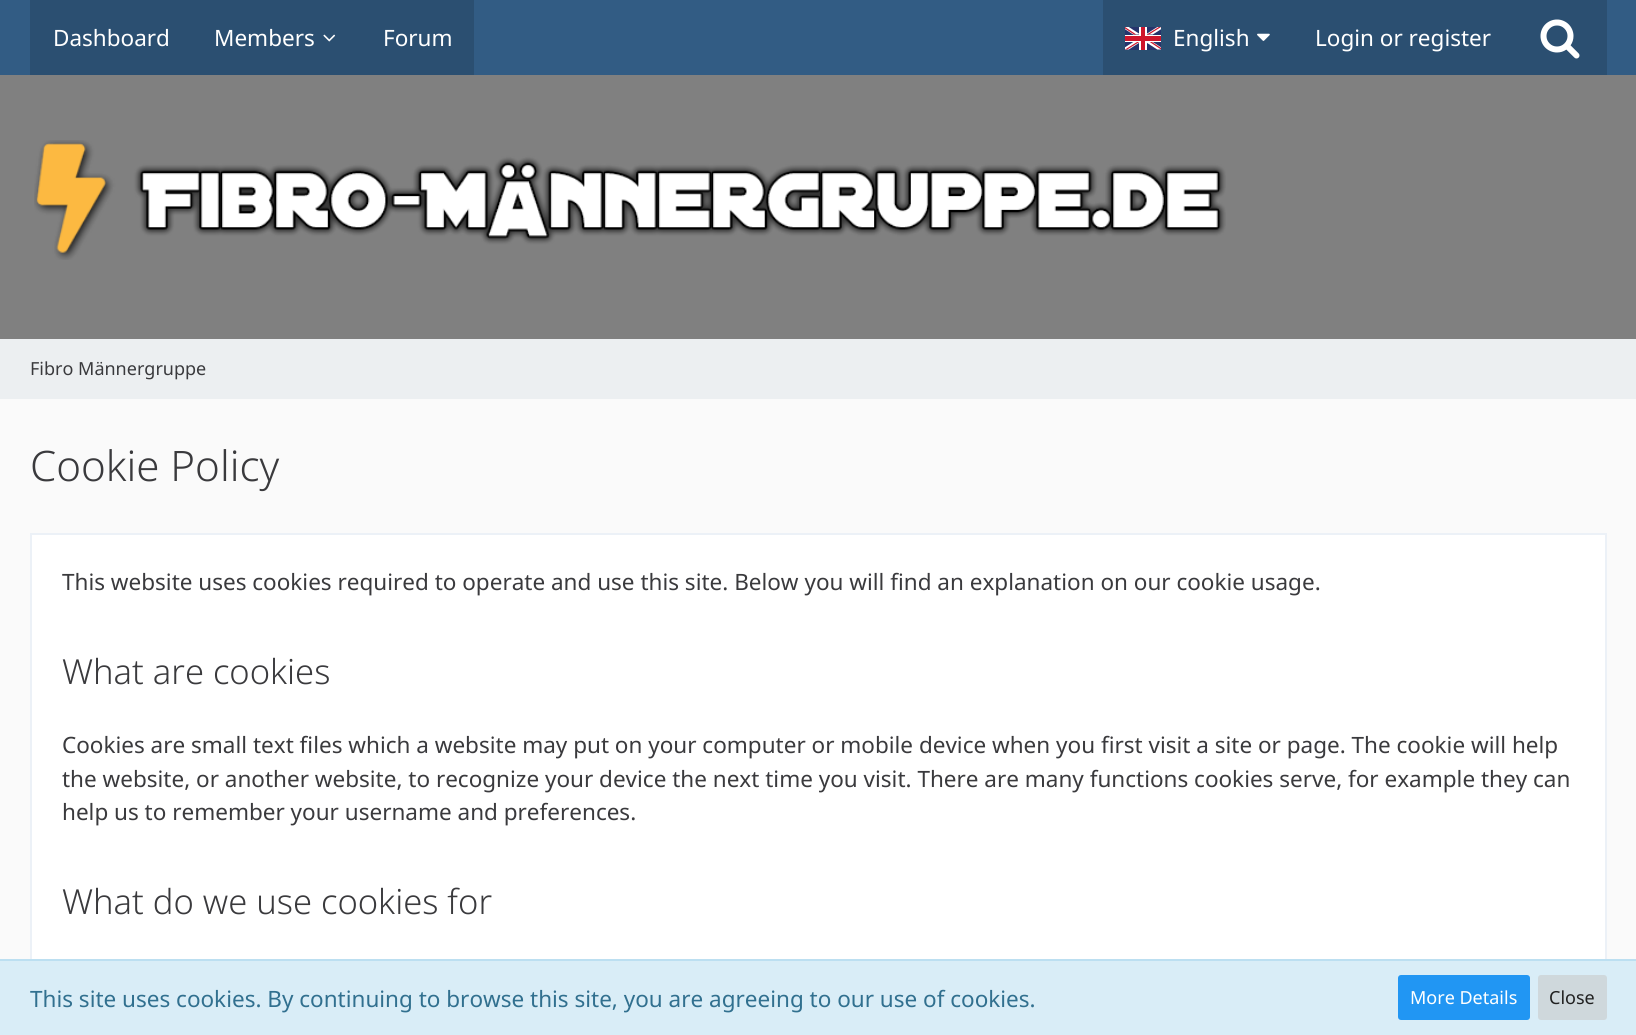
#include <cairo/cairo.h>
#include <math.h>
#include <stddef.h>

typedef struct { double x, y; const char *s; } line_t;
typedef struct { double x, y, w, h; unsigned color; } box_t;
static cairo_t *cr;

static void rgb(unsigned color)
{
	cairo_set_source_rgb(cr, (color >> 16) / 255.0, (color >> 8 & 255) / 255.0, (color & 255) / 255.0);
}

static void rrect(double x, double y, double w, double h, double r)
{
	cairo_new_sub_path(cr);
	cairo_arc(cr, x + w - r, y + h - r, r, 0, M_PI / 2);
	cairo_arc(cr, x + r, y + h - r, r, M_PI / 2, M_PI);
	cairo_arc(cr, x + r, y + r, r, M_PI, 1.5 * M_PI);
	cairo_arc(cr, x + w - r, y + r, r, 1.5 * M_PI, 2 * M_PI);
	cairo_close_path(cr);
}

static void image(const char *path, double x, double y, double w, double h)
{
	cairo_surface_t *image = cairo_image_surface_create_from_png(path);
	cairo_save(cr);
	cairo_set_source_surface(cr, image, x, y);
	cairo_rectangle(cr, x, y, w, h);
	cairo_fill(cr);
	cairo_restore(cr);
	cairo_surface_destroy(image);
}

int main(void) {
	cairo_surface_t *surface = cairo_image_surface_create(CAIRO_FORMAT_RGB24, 1636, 1035);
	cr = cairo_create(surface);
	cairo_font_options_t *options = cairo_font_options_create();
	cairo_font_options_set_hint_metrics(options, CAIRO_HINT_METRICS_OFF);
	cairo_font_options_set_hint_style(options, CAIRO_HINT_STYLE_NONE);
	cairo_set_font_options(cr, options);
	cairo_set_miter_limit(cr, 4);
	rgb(0xfafafa);
	cairo_paint(cr);
	{
		static const box_t items[] = {
			{0, 75, 1636, 264, 0x808080},
			{0, 0, 1636, 75, 0x325c84},
			{30, 0, 444, 75, 0x2b4f71},
		};
		for (size_t i = 0; i < sizeof items / sizeof *items; i++) {
			rgb(items[i].color);
			cairo_rectangle(cr, items[i].x, items[i].y, items[i].w, items[i].h);
			cairo_fill(cr);
		}
	}
	image("img/1.png", 323, 34, 13, 8);
	cairo_rectangle(cr, 1103, 0, 504, 75);
	cairo_fill(cr);
	image("img/2.png", 1125, 27, 36, 23);
	image("img/3.png", 1257, 33, 13, 8);
	image("img/4.png", 1540, 19, 40, 40);
	image("img/5.png", 34, 140, 1192, 120);
	rgb(0xeceff1);
	cairo_rectangle(cr, 0, 339, 1636, 60);
	cairo_fill(cr);
	rgb(0xffffff);
	cairo_rectangle(cr, 32, 535, 1573, 424);
	cairo_fill(cr);
	cairo_rectangle(cr, 31, 534, 1575, 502);
	rgb(0xecf1f7);
	cairo_stroke(cr);
	rgb(0xd9edf7);
	cairo_rectangle(cr, 0, 961, 1636, 74);
	cairo_fill(cr);
	rgb(0xbcdff1);
	cairo_rectangle(cr, 0, 959, 1636, 2);
	cairo_fill(cr);
	rgb(0x2196f3);
	rrect(1398, 975, 132, 45, 3);
	cairo_fill(cr);
	rgb(0xcfd8dc);
	rrect(1538, 975, 69, 45, 3);
	cairo_fill(cr);
	cairo_select_font_face(cr, "Noto Sans", CAIRO_FONT_SLANT_NORMAL, CAIRO_FONT_WEIGHT_NORMAL);
	cairo_set_font_size(cr, 22.5);
	rgb(0xffffff);
	{
		static const line_t items[] = {
			{53, 46, "Dashboard"},
			{214, 46, "Members"},
			{383, 46, "Forum"},
			{1173, 46, "English"},
			{1315, 46, "Login or register"},
		};
		for (size_t i = 0; i < sizeof items / sizeof *items; i++) {
			cairo_move_to(cr, items[i].x, items[i].y);
			cairo_show_text(cr, items[i].s);
		}
	}
	cairo_set_font_size(cr, 18);
	rgb(0x3a3a3d);
	cairo_move_to(cr, 30, 375);
	cairo_show_text(cr, "Fibro Männergruppe");
	cairo_select_font_face(cr, "Noto Sans Light", CAIRO_FONT_SLANT_NORMAL, CAIRO_FONT_WEIGHT_NORMAL);
	cairo_set_font_size(cr, 42);
	cairo_move_to(cr, 30, 481);
	cairo_show_text(cr, "Cookie Policy");
	cairo_select_font_face(cr, "Noto Sans", CAIRO_FONT_SLANT_NORMAL, CAIRO_FONT_WEIGHT_NORMAL);
	cairo_set_font_size(cr, 22.5);
	cairo_move_to(cr, 62, 590);
	cairo_show_text(cr, "This website uses cookies required to operate and use this site. Below you will find an explanation on our cookie usage.");
	cairo_select_font_face(cr, "Noto Sans Light", CAIRO_FONT_SLANT_NORMAL, CAIRO_FONT_WEIGHT_NORMAL);
	cairo_set_font_size(cr, 34.5);
	cairo_move_to(cr, 62, 684);
	cairo_show_text(cr, "What are cookies");
	cairo_select_font_face(cr, "Noto Sans", CAIRO_FONT_SLANT_NORMAL, CAIRO_FONT_WEIGHT_NORMAL);
	cairo_set_font_size(cr, 22.5);
	{
		static const line_t items[] = {
			{62, 753, "Cookies are small text files which a website may put on your computer or mobile device when you first visit a site or page. The cookie will help"},
			{62, 787, "the website, or another website, to recognize your device the next time you visit. There are many functions cookies serve, for example they can"},
			{62, 820, "help us to remember your username and preferences."},
		};
		for (size_t i = 0; i < sizeof items / sizeof *items; i++) {
			cairo_move_to(cr, items[i].x, items[i].y);
			cairo_show_text(cr, items[i].s);
		}
	}
	cairo_select_font_face(cr, "Noto Sans Light", CAIRO_FONT_SLANT_NORMAL, CAIRO_FONT_WEIGHT_NORMAL);
	cairo_set_font_size(cr, 34.5);
	cairo_move_to(cr, 62, 914);
	cairo_show_text(cr, "What do we use cookies for");
	cairo_select_font_face(cr, "Noto Sans", CAIRO_FONT_SLANT_NORMAL, CAIRO_FONT_WEIGHT_NORMAL);
	cairo_set_font_size(cr, 22.5);
	rgb(0x31708f);
	cairo_move_to(cr, 30, 1007);
	cairo_show_text(cr, "This site uses cookies. By continuing to browse this site, you are agreeing to our use of cookies.");
	cairo_set_font_size(cr, 18);
	rgb(0xffffff);
	cairo_move_to(cr, 1410, 1004);
	cairo_show_text(cr, "More Details");
	rgb(0x212121);
	cairo_move_to(cr, 1549, 1004);
	cairo_show_text(cr, "Close");
	cairo_surface_write_to_png(surface, "page.png");
	cairo_font_options_destroy(options);
	cairo_destroy(cr);
	cairo_surface_destroy(surface);
	return 0;
}
